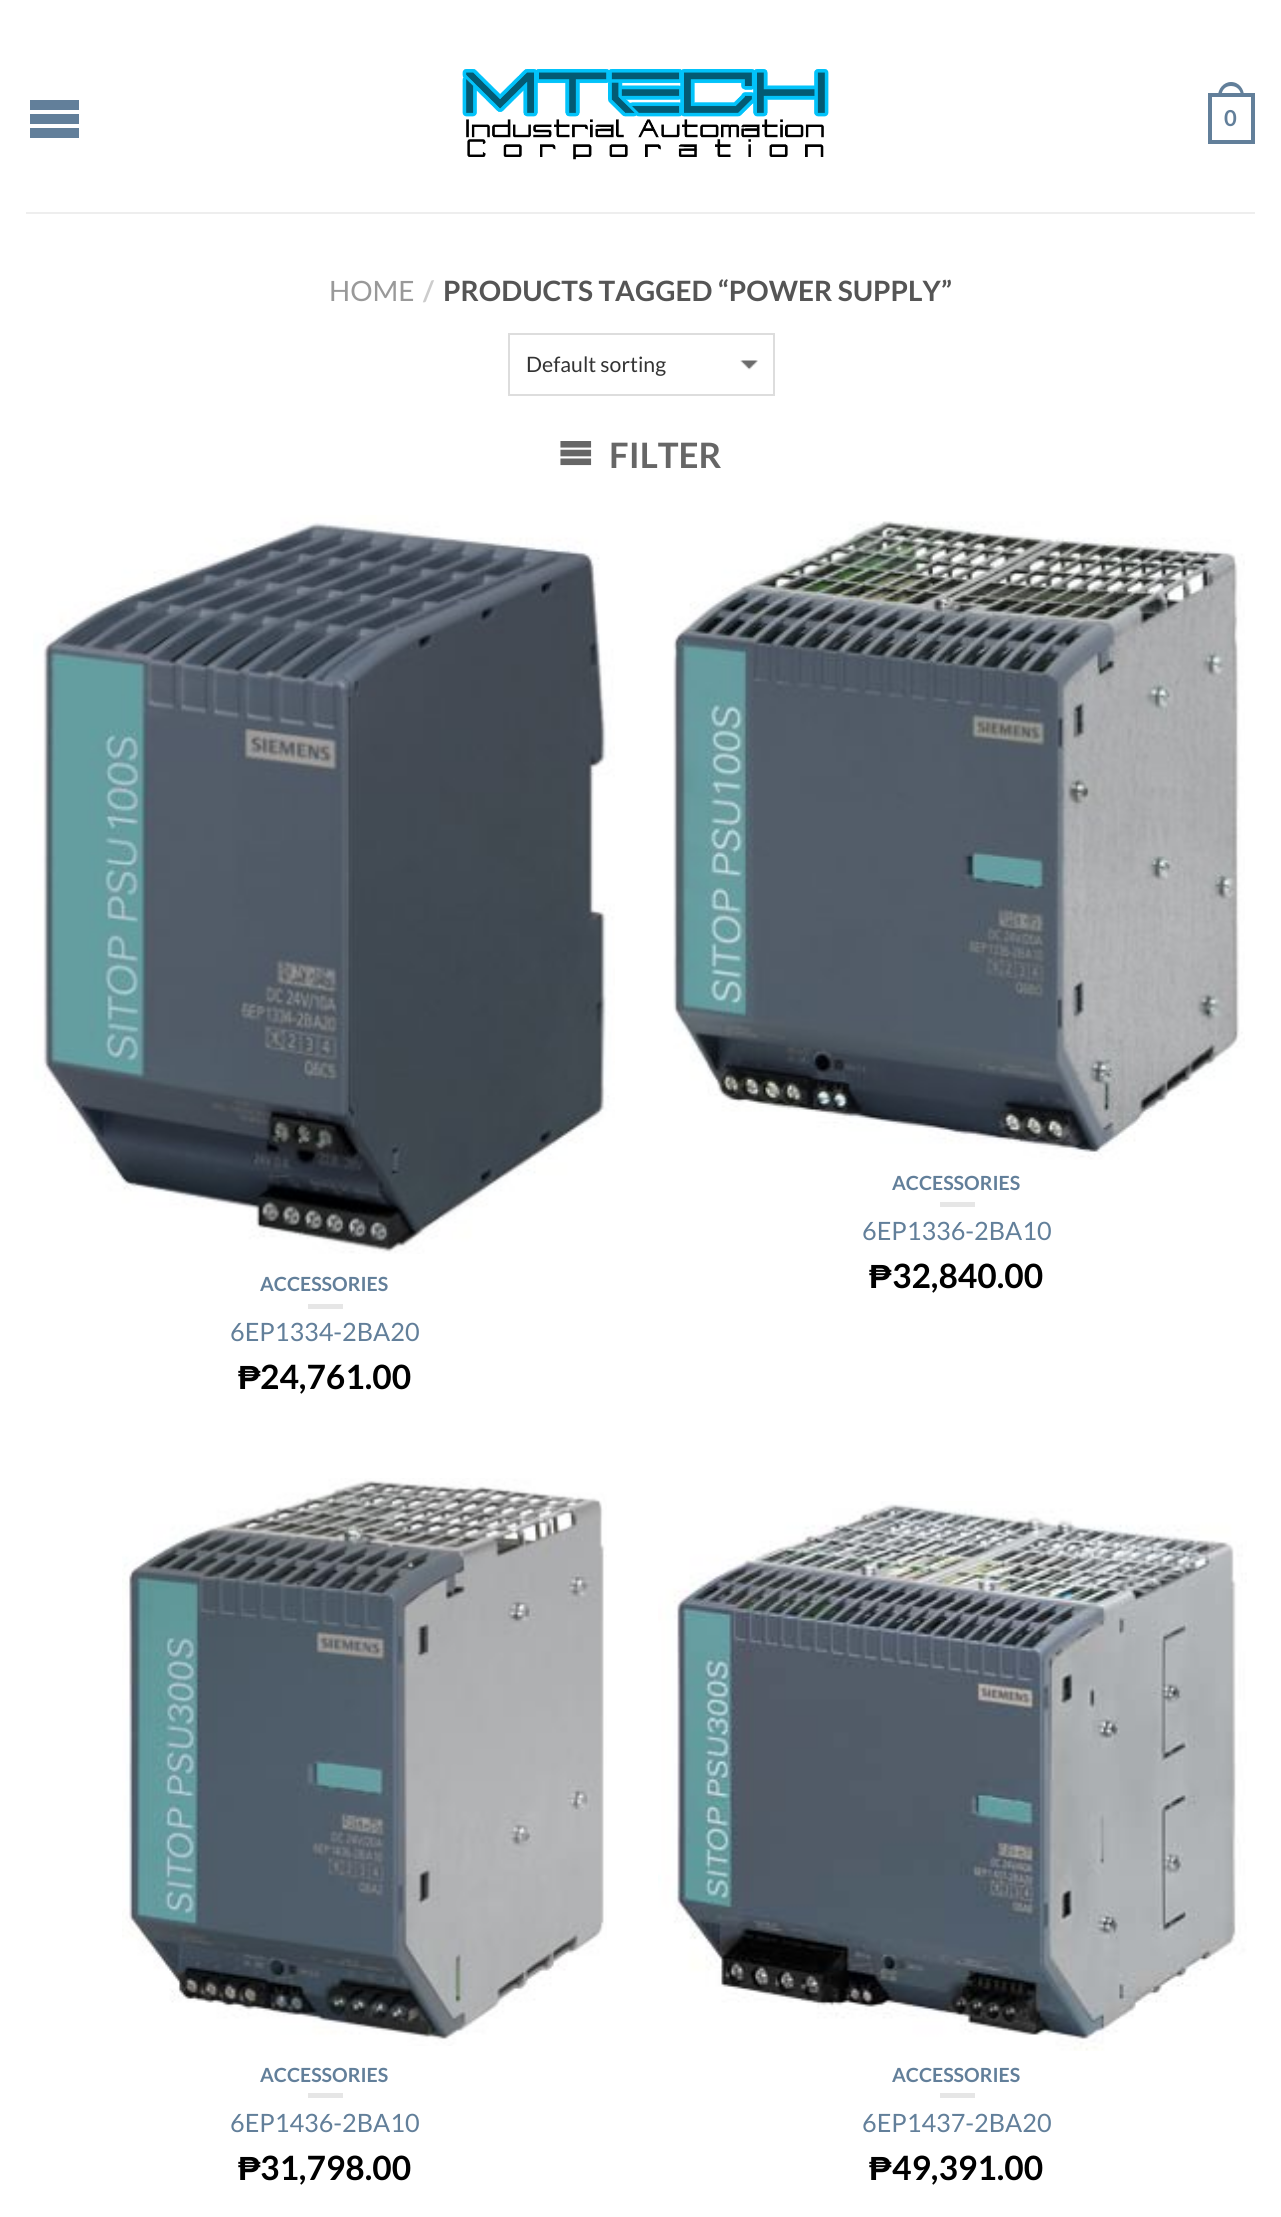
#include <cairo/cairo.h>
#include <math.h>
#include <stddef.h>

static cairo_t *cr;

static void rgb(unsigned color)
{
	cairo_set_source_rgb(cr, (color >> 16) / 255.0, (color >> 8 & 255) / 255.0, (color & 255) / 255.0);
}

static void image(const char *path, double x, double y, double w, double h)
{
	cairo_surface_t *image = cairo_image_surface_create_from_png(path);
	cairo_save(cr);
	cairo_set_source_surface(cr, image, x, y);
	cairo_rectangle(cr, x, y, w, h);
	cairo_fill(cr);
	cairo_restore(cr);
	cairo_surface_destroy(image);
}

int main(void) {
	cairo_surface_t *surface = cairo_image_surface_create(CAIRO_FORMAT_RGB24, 1281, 2217);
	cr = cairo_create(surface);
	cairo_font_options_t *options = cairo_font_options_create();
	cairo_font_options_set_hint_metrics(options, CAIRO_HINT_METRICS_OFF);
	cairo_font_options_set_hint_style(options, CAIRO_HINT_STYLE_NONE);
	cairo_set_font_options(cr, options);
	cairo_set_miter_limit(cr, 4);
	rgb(0xffffff);
	cairo_paint(cr);
	rgb(0x627f9a);
	cairo_new_path(cr);
	cairo_move_to(cr, 30, 100);
	cairo_line_to(cr, 79, 100);
	cairo_line_to(cr, 79, 110);
	cairo_line_to(cr, 30, 110);
	cairo_close_path(cr);
	cairo_move_to(cr, 30, 114);
	cairo_line_to(cr, 79, 114);
	cairo_line_to(cr, 79, 124);
	cairo_line_to(cr, 30, 124);
	cairo_close_path(cr);
	cairo_move_to(cr, 30, 128);
	cairo_line_to(cr, 79, 128);
	cairo_line_to(cr, 79, 138);
	cairo_line_to(cr, 30, 138);
	cairo_close_path(cr);
	cairo_fill(cr);
	image("img/1.png", 462, 69, 367, 91);
	cairo_set_fill_rule(cr, CAIRO_FILL_RULE_EVEN_ODD);
	cairo_new_path(cr);
	cairo_move_to(cr, 1231, 82);
	cairo_curve_to(cr, 1239, 82, 1244, 89, 1244, 96);
	cairo_line_to(cr, 1218, 96);
	cairo_curve_to(cr, 1218, 89, 1223.5, 82, 1231, 82);
	cairo_close_path(cr);
	cairo_move_to(cr, 1231, 86);
	cairo_curve_to(cr, 1237, 86, 1241, 90.5, 1241, 96);
	cairo_line_to(cr, 1221.5, 96);
	cairo_curve_to(cr, 1221.5, 90.5, 1225, 86, 1231, 86);
	cairo_close_path(cr);
	cairo_fill(cr);
	cairo_rectangle(cr, 1210, 95, 43, 47);
	cairo_set_line_width(cr, 4);
	cairo_stroke(cr);
	rgb(0xeeeeee);
	cairo_rectangle(cr, 26, 212, 1229, 2);
	cairo_fill(cr);
	image("img/2.png", 740, 360, 18, 10);
	cairo_rectangle(cr, 509, 334, 265, 61);
	rgb(0xdddddd);
	cairo_set_line_width(cr, 2);
	cairo_stroke(cr);
	image("img/3.png", 560, 441, 32, 25);
	image("img/4.png", 673, 521, 572, 639);
	rgb(0xe6e6e6);
	cairo_rectangle(cr, 940, 1202, 35, 5);
	cairo_fill(cr);
	image("img/5.png", 33, 515, 582, 739);
	cairo_rectangle(cr, 308, 1304, 35, 5);
	cairo_fill(cr);
	image("img/6.png", 122, 1478, 485, 568);
	cairo_rectangle(cr, 308, 2093, 35, 5);
	cairo_fill(cr);
	image("img/7.png", 658, 1501, 589, 550);
	cairo_rectangle(cr, 940, 2093, 35, 5);
	cairo_fill(cr);
	cairo_select_font_face(cr, "Lato", CAIRO_FONT_SLANT_NORMAL, CAIRO_FONT_WEIGHT_BOLD);
	cairo_set_font_size(cr, 22);
	rgb(0x627f9a);
	cairo_move_to(cr, 1224, 126);
	cairo_show_text(cr, "0");
	cairo_select_font_face(cr, "Lato", CAIRO_FONT_SLANT_NORMAL, CAIRO_FONT_WEIGHT_NORMAL);
	cairo_set_font_size(cr, 28);
	rgb(0x999999);
	cairo_move_to(cr, 329, 301);
	cairo_show_text(cr, "HOME");
	cairo_select_font_face(cr, "Lato", CAIRO_FONT_SLANT_NORMAL, CAIRO_FONT_WEIGHT_BOLD);
	rgb(0xcccccc);
	cairo_move_to(cr, 423, 301);
	cairo_show_text(cr, "/");
	rgb(0x555555);
	cairo_move_to(cr, 443, 301);
	cairo_show_text(cr, "PRODUCTS TAGGED “POWER SUPPLY”");
	cairo_select_font_face(cr, "Lato", CAIRO_FONT_SLANT_NORMAL, CAIRO_FONT_WEIGHT_NORMAL);
	cairo_set_font_size(cr, 21.25);
	rgb(0x333333);
	cairo_move_to(cr, 526, 372);
	cairo_show_text(cr, "Default sorting");
	cairo_select_font_face(cr, "Lato", CAIRO_FONT_SLANT_NORMAL, CAIRO_FONT_WEIGHT_BOLD);
	cairo_set_font_size(cr, 35);
	rgb(0x666666);
	cairo_move_to(cr, 609, 468);
	cairo_show_text(cr, "FILTER");
	cairo_set_font_size(cr, 19.5);
	rgb(0x627f9a);
	cairo_move_to(cr, 892, 1190);
	cairo_show_text(cr, "ACCESSORIES");
	cairo_select_font_face(cr, "Lato", CAIRO_FONT_SLANT_NORMAL, CAIRO_FONT_WEIGHT_NORMAL);
	cairo_set_font_size(cr, 25.25);
	cairo_move_to(cr, 862, 1240);
	cairo_show_text(cr, "6EP1336-2BA10");
	cairo_select_font_face(cr, "Liberation Sans", CAIRO_FONT_SLANT_NORMAL, CAIRO_FONT_WEIGHT_BOLD);
	cairo_set_font_size(cr, 33.5);
	rgb(0x000000);
	cairo_move_to(cr, 869, 1288);
	cairo_show_text(cr, "₱");
	cairo_select_font_face(cr, "Lato", CAIRO_FONT_SLANT_NORMAL, CAIRO_FONT_WEIGHT_BOLD);
	cairo_move_to(cr, 892, 1288);
	cairo_show_text(cr, "32,840.00");
	cairo_set_font_size(cr, 19.5);
	rgb(0x627f9a);
	cairo_move_to(cr, 260, 1291);
	cairo_show_text(cr, "ACCESSORIES");
	cairo_select_font_face(cr, "Lato", CAIRO_FONT_SLANT_NORMAL, CAIRO_FONT_WEIGHT_NORMAL);
	cairo_set_font_size(cr, 25.25);
	cairo_move_to(cr, 230, 1341);
	cairo_show_text(cr, "6EP1334-2BA20");
	cairo_select_font_face(cr, "Liberation Sans", CAIRO_FONT_SLANT_NORMAL, CAIRO_FONT_WEIGHT_BOLD);
	cairo_set_font_size(cr, 33.5);
	rgb(0x000000);
	cairo_move_to(cr, 238, 1389);
	cairo_show_text(cr, "₱");
	cairo_select_font_face(cr, "Lato", CAIRO_FONT_SLANT_NORMAL, CAIRO_FONT_WEIGHT_BOLD);
	cairo_move_to(cr, 260, 1389);
	cairo_show_text(cr, "24,761.00");
	cairo_set_font_size(cr, 19.5);
	rgb(0x627f9a);
	cairo_move_to(cr, 260, 2082);
	cairo_show_text(cr, "ACCESSORIES");
	cairo_select_font_face(cr, "Lato", CAIRO_FONT_SLANT_NORMAL, CAIRO_FONT_WEIGHT_NORMAL);
	cairo_set_font_size(cr, 25.25);
	cairo_move_to(cr, 230, 2132);
	cairo_show_text(cr, "6EP1436-2BA10");
	cairo_select_font_face(cr, "Liberation Sans", CAIRO_FONT_SLANT_NORMAL, CAIRO_FONT_WEIGHT_BOLD);
	cairo_set_font_size(cr, 33.5);
	rgb(0x000000);
	cairo_move_to(cr, 238, 2180);
	cairo_show_text(cr, "₱");
	cairo_select_font_face(cr, "Lato", CAIRO_FONT_SLANT_NORMAL, CAIRO_FONT_WEIGHT_BOLD);
	cairo_move_to(cr, 260, 2180);
	cairo_show_text(cr, "31,798.00");
	cairo_set_font_size(cr, 19.5);
	rgb(0x627f9a);
	cairo_move_to(cr, 892, 2082);
	cairo_show_text(cr, "ACCESSORIES");
	cairo_select_font_face(cr, "Lato", CAIRO_FONT_SLANT_NORMAL, CAIRO_FONT_WEIGHT_NORMAL);
	cairo_set_font_size(cr, 25.25);
	cairo_move_to(cr, 862, 2132);
	cairo_show_text(cr, "6EP1437-2BA20");
	cairo_select_font_face(cr, "Liberation Sans", CAIRO_FONT_SLANT_NORMAL, CAIRO_FONT_WEIGHT_BOLD);
	cairo_set_font_size(cr, 33.5);
	rgb(0x000000);
	cairo_move_to(cr, 869, 2180);
	cairo_show_text(cr, "₱");
	cairo_select_font_face(cr, "Lato", CAIRO_FONT_SLANT_NORMAL, CAIRO_FONT_WEIGHT_BOLD);
	cairo_move_to(cr, 892, 2180);
	cairo_show_text(cr, "49,391.00");
	cairo_surface_write_to_png(surface, "page.png");
	cairo_font_options_destroy(options);
	cairo_destroy(cr);
	cairo_surface_destroy(surface);
	return 0;
}
